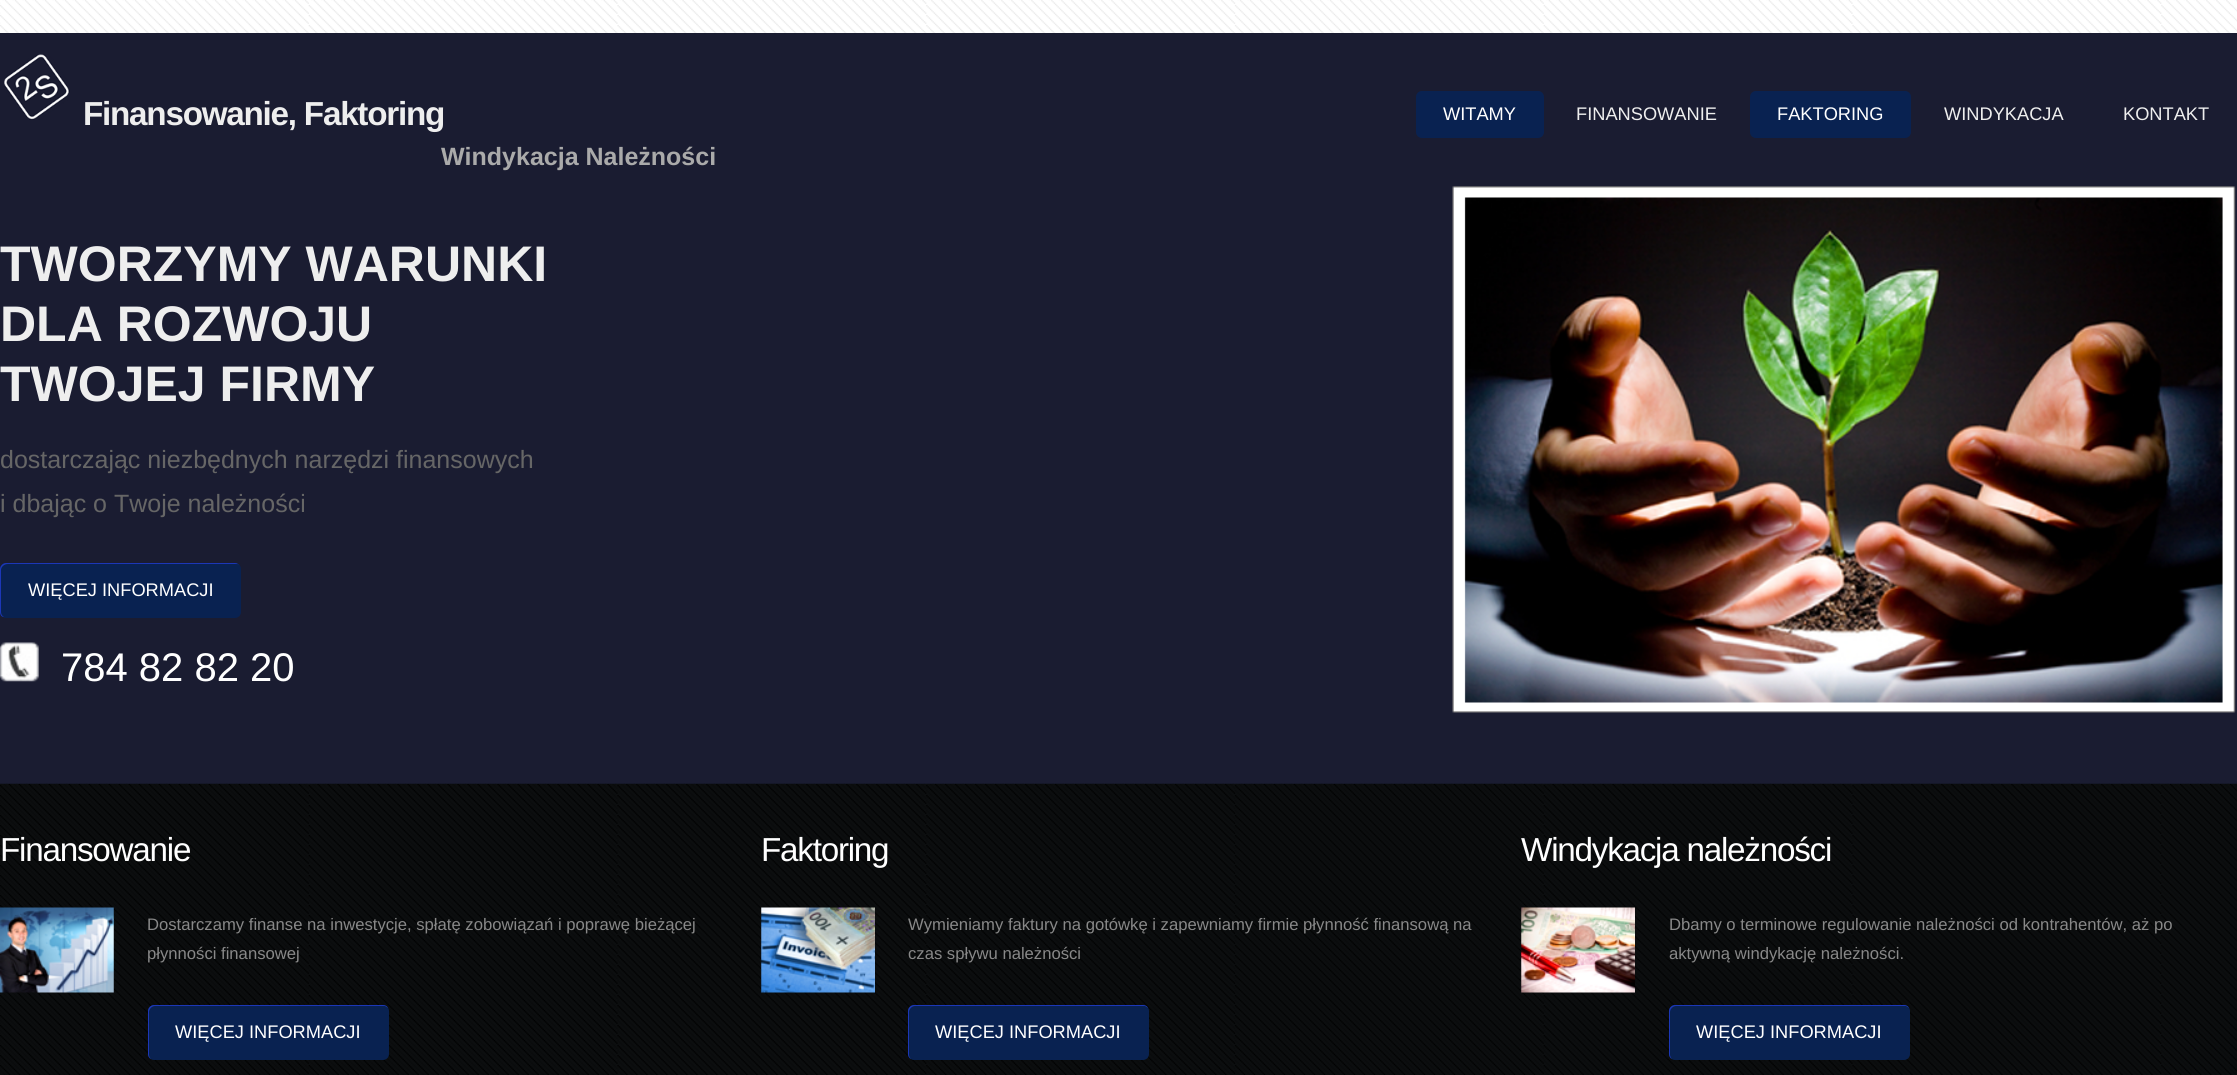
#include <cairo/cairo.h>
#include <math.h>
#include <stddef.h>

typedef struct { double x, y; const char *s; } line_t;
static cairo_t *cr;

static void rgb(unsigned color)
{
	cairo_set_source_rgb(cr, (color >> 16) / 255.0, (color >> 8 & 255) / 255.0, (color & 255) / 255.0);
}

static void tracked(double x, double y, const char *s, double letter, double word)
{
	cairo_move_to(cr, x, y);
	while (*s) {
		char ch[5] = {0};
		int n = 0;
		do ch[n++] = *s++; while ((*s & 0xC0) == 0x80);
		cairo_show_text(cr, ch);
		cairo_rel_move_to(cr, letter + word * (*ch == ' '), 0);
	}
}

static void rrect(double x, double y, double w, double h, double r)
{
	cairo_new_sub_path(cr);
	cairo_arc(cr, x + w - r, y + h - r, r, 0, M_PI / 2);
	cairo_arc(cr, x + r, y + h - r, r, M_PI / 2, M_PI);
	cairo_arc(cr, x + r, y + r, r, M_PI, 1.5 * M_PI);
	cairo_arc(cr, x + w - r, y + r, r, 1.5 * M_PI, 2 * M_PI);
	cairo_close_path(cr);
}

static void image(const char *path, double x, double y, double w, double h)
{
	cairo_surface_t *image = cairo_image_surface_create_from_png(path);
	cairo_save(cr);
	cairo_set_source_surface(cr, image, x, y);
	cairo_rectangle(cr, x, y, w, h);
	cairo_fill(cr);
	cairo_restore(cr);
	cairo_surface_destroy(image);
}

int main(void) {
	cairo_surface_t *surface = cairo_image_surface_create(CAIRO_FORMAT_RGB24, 2237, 1075);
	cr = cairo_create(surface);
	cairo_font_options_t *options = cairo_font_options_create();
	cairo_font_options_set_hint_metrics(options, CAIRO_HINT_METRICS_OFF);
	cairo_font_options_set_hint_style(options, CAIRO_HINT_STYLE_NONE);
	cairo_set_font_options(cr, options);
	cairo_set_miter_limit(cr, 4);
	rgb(0xffffff);
	cairo_paint(cr);
	image("img/1.png", 0, 0, 2237, 33);
	rgb(0x1a1c31);
	cairo_rectangle(cr, 0, 33, 2237, 751);
	cairo_fill(cr);
	image("img/2.png", 4, 54, 66, 66);
	rgb(0x092251);
	rrect(1416, 91, 128, 47, 6);
	cairo_fill(cr);
	rrect(1750, 91, 161, 47, 6);
	cairo_fill(cr);
	image("img/3.png", 1452, 186, 784, 527);
	rrect(0, 563, 241, 55, 6);
	cairo_fill(cr);
	rgb(0x1c37b7);
	cairo_new_path(cr);
	cairo_move_to(cr, 8, 564);
	cairo_line_to(cr, 236, 564);
	cairo_curve_to(cr, 237, 564, 239, 564, 239, 565);
	cairo_curve_to(cr, 238, 564, 237, 563, 235, 563);
	cairo_line_to(cr, 6, 563);
	cairo_curve_to(cr, 3, 563, 0, 566, 0, 569);
	cairo_line_to(cr, 0, 612);
	cairo_curve_to(cr, 0, 614, 1, 617, 4, 617);
	cairo_curve_to(cr, 2, 616, 1, 614, 1, 612);
	cairo_line_to(cr, 1, 570);
	cairo_curve_to(cr, 1, 567, 4, 564, 8, 564);
	cairo_close_path(cr);
	cairo_fill(cr);
	image("img/4.png", 0, 642, 39, 40);
	image("img/5.png", 0, 783, 2237, 292);
	image("img/6.png", 0, 907, 114, 86);
	rgb(0x092251);
	rrect(148, 1005, 241, 55, 6);
	cairo_fill(cr);
	rgb(0x1c37b7);
	cairo_new_path(cr);
	cairo_move_to(cr, 155, 1006);
	cairo_line_to(cr, 385, 1006);
	cairo_line_to(cr, 388, 1008);
	cairo_curve_to(cr, 387, 1006, 385, 1005, 383, 1005);
	cairo_line_to(cr, 154, 1005);
	cairo_curve_to(cr, 151, 1005, 148, 1008, 148, 1011);
	cairo_line_to(cr, 148, 1054);
	cairo_curve_to(cr, 148, 1056, 149, 1058, 151, 1059);
	cairo_curve_to(cr, 150, 1058, 149, 1056, 149, 1055);
	cairo_line_to(cr, 149, 1012);
	cairo_curve_to(cr, 149, 1009, 152, 1006, 155, 1006);
	cairo_close_path(cr);
	cairo_fill(cr);
	image("img/7.png", 761, 907, 114, 86);
	rgb(0x092251);
	rrect(908, 1005, 241, 55, 6);
	cairo_fill(cr);
	rgb(0x1c37b7);
	cairo_new_path(cr);
	cairo_move_to(cr, 915, 1006);
	cairo_line_to(cr, 1145, 1006);
	cairo_line_to(cr, 1148, 1008);
	cairo_curve_to(cr, 1147, 1006, 1145, 1005, 1143, 1005);
	cairo_line_to(cr, 914, 1005);
	cairo_curve_to(cr, 911, 1005, 908, 1008, 908, 1011);
	cairo_line_to(cr, 908, 1054);
	cairo_curve_to(cr, 908, 1056, 909, 1058, 911, 1059);
	cairo_curve_to(cr, 910, 1058, 909, 1056, 909, 1055);
	cairo_line_to(cr, 909, 1012);
	cairo_curve_to(cr, 909, 1009, 912, 1006, 915, 1006);
	cairo_close_path(cr);
	cairo_fill(cr);
	image("img/8.png", 1521, 907, 114, 86);
	rgb(0x092251);
	rrect(1669, 1005, 241, 55, 6);
	cairo_fill(cr);
	rgb(0x1c37b7);
	cairo_new_path(cr);
	cairo_move_to(cr, 1676, 1006);
	cairo_line_to(cr, 1906, 1006);
	cairo_line_to(cr, 1909, 1008);
	cairo_curve_to(cr, 1908, 1006, 1906, 1005, 1904, 1005);
	cairo_line_to(cr, 1675, 1005);
	cairo_curve_to(cr, 1672, 1005, 1669, 1008, 1669, 1011);
	cairo_line_to(cr, 1669, 1054);
	cairo_curve_to(cr, 1669, 1056, 1670, 1058, 1672, 1059);
	cairo_curve_to(cr, 1671, 1058, 1670, 1056, 1670, 1055);
	cairo_line_to(cr, 1670, 1012);
	cairo_curve_to(cr, 1670, 1009, 1673, 1006, 1676, 1006);
	cairo_close_path(cr);
	cairo_fill(cr);
	cairo_select_font_face(cr, "Liberation Sans", CAIRO_FONT_SLANT_NORMAL, CAIRO_FONT_WEIGHT_BOLD);
	cairo_set_font_size(cr, 33.25);
	rgb(0xeeeeee);
	tracked(83, 125, "Finansowanie, Faktoring", -1.25, 0);
	cairo_set_font_size(cr, 25);
	rgb(0xaaaaaa);
	cairo_move_to(cr, 441, 165);
	cairo_show_text(cr, "Windykacja Należności");
	cairo_select_font_face(cr, "Liberation Sans", CAIRO_FONT_SLANT_NORMAL, CAIRO_FONT_WEIGHT_NORMAL);
	cairo_set_font_size(cr, 18.25);
	rgb(0xffffff);
	cairo_move_to(cr, 1443, 120);
	cairo_show_text(cr, "WITAMY");
	rgb(0xeeeeee);
	cairo_move_to(cr, 1576, 120);
	cairo_show_text(cr, "FINANSOWANIE");
	rgb(0xffffff);
	cairo_move_to(cr, 1777, 120);
	cairo_show_text(cr, "FAKTORING");
	rgb(0xeeeeee);
	cairo_move_to(cr, 1944, 120);
	cairo_show_text(cr, "WINDYKACJA");
	cairo_move_to(cr, 2123, 120);
	cairo_show_text(cr, "KONTAKT");
	cairo_select_font_face(cr, "Liberation Sans", CAIRO_FONT_SLANT_NORMAL, CAIRO_FONT_WEIGHT_BOLD);
	cairo_set_font_size(cr, 50);
	{
		static const line_t items[] = {
			{0, 281, "TWORZYMY WARUNKI"},
			{0, 341, "DLA ROZWOJU"},
			{0, 401, "TWOJEJ FIRMY"},
		};
		for (size_t i = 0; i < sizeof items / sizeof *items; i++) {
			cairo_move_to(cr, items[i].x, items[i].y);
			cairo_show_text(cr, items[i].s);
		}
	}
	cairo_select_font_face(cr, "Liberation Sans", CAIRO_FONT_SLANT_NORMAL, CAIRO_FONT_WEIGHT_NORMAL);
	cairo_set_font_size(cr, 25);
	rgb(0x666666);
	cairo_move_to(cr, 0, 468);
	cairo_show_text(cr, "dostarczając niezbędnych narzędzi finansowych");
	cairo_move_to(cr, 0, 512);
	cairo_show_text(cr, "i dbając o Twoje należności");
	cairo_set_font_size(cr, 18.25);
	rgb(0xffffff);
	cairo_move_to(cr, 28, 596);
	cairo_show_text(cr, "WIĘCEJ INFORMACJI");
	cairo_set_font_size(cr, 40);
	cairo_move_to(cr, 61, 681);
	cairo_show_text(cr, "784 82 82 20");
	cairo_set_font_size(cr, 33.25);
	tracked(0, 861, "Finansowanie", -1.25, 0);
	cairo_set_font_size(cr, 16.65);
	rgb(0x888888);
	cairo_move_to(cr, 147, 930);
	cairo_show_text(cr, "Dostarczamy finanse na inwestycje, spłatę zobowiązań i poprawę bieżącej");
	cairo_move_to(cr, 147, 959);
	cairo_show_text(cr, "płynności finansowej");
	cairo_set_font_size(cr, 18.25);
	rgb(0xffffff);
	cairo_move_to(cr, 175, 1038);
	cairo_show_text(cr, "WIĘCEJ INFORMACJI");
	cairo_set_font_size(cr, 33.25);
	tracked(761, 861, "Faktoring", -1.25, 0);
	cairo_set_font_size(cr, 16.65);
	rgb(0x888888);
	cairo_move_to(cr, 908, 930);
	cairo_show_text(cr, "Wymieniamy faktury na gotówkę i zapewniamy firmie płynność finansową na");
	cairo_move_to(cr, 908, 959);
	cairo_show_text(cr, "czas spływu należności");
	cairo_set_font_size(cr, 18.25);
	rgb(0xffffff);
	cairo_move_to(cr, 935, 1038);
	cairo_show_text(cr, "WIĘCEJ INFORMACJI");
	cairo_set_font_size(cr, 33.25);
	tracked(1521, 861, "Windykacja należności", -1.25, 0);
	cairo_set_font_size(cr, 16.65);
	rgb(0x888888);
	cairo_move_to(cr, 1669, 930);
	cairo_show_text(cr, "Dbamy o terminowe regulowanie należności od kontrahentów, aż po");
	cairo_move_to(cr, 1669, 959);
	cairo_show_text(cr, "aktywną windykację należności.");
	cairo_set_font_size(cr, 18.25);
	rgb(0xffffff);
	cairo_move_to(cr, 1696, 1038);
	cairo_show_text(cr, "WIĘCEJ INFORMACJI");
	cairo_surface_write_to_png(surface, "page.png");
	cairo_font_options_destroy(options);
	cairo_destroy(cr);
	cairo_surface_destroy(surface);
	return 0;
}
